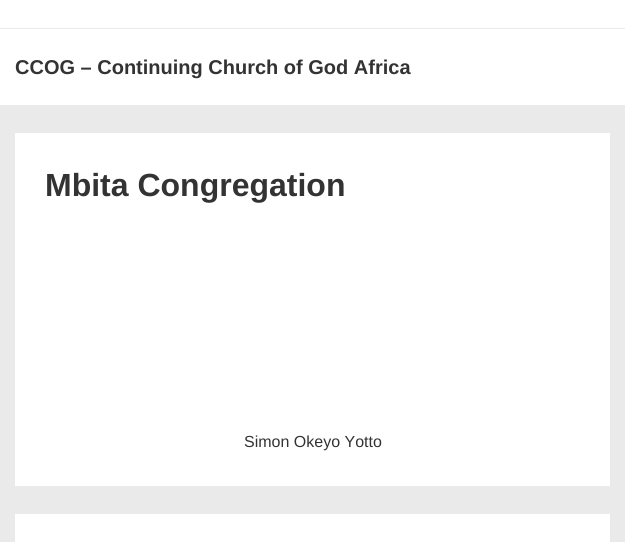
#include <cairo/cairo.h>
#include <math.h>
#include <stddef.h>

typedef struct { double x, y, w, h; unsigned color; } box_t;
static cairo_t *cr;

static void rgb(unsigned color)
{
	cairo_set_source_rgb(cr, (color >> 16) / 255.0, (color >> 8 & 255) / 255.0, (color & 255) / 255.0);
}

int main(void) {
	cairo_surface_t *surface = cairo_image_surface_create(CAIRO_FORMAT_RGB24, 625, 542);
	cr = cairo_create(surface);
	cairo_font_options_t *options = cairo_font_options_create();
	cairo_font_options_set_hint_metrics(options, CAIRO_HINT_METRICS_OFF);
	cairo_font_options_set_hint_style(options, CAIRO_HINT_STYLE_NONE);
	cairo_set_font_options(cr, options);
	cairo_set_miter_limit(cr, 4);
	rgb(0xeaeaea);
	cairo_paint(cr);
	{
		static const box_t items[] = {
			{0, 0, 625, 28, 0xffffff},
			{0, 29, 625, 76, 0xffffff},
			{15, 133, 595, 353, 0xffffff},
			{15, 514, 595, 28, 0xffffff},
		};
		for (size_t i = 0; i < sizeof items / sizeof *items; i++) {
			rgb(items[i].color);
			cairo_rectangle(cr, items[i].x, items[i].y, items[i].w, items[i].h);
			cairo_fill(cr);
		}
	}
	cairo_select_font_face(cr, "Liberation Sans", CAIRO_FONT_SLANT_NORMAL, CAIRO_FONT_WEIGHT_BOLD);
	cairo_set_font_size(cr, 20);
	rgb(0x333333);
	cairo_move_to(cr, 15, 74);
	cairo_show_text(cr, "CCOG – Continuing Church of God Africa");
	cairo_set_font_size(cr, 32);
	cairo_move_to(cr, 45, 196);
	cairo_show_text(cr, "Mbita Congregation");
	cairo_select_font_face(cr, "Liberation Sans", CAIRO_FONT_SLANT_NORMAL, CAIRO_FONT_WEIGHT_NORMAL);
	cairo_set_font_size(cr, 16);
	cairo_move_to(cr, 244, 447);
	cairo_show_text(cr, "Simon Okeyo Yotto");
	cairo_surface_write_to_png(surface, "page.png");
	cairo_font_options_destroy(options);
	cairo_destroy(cr);
	cairo_surface_destroy(surface);
	return 0;
}
